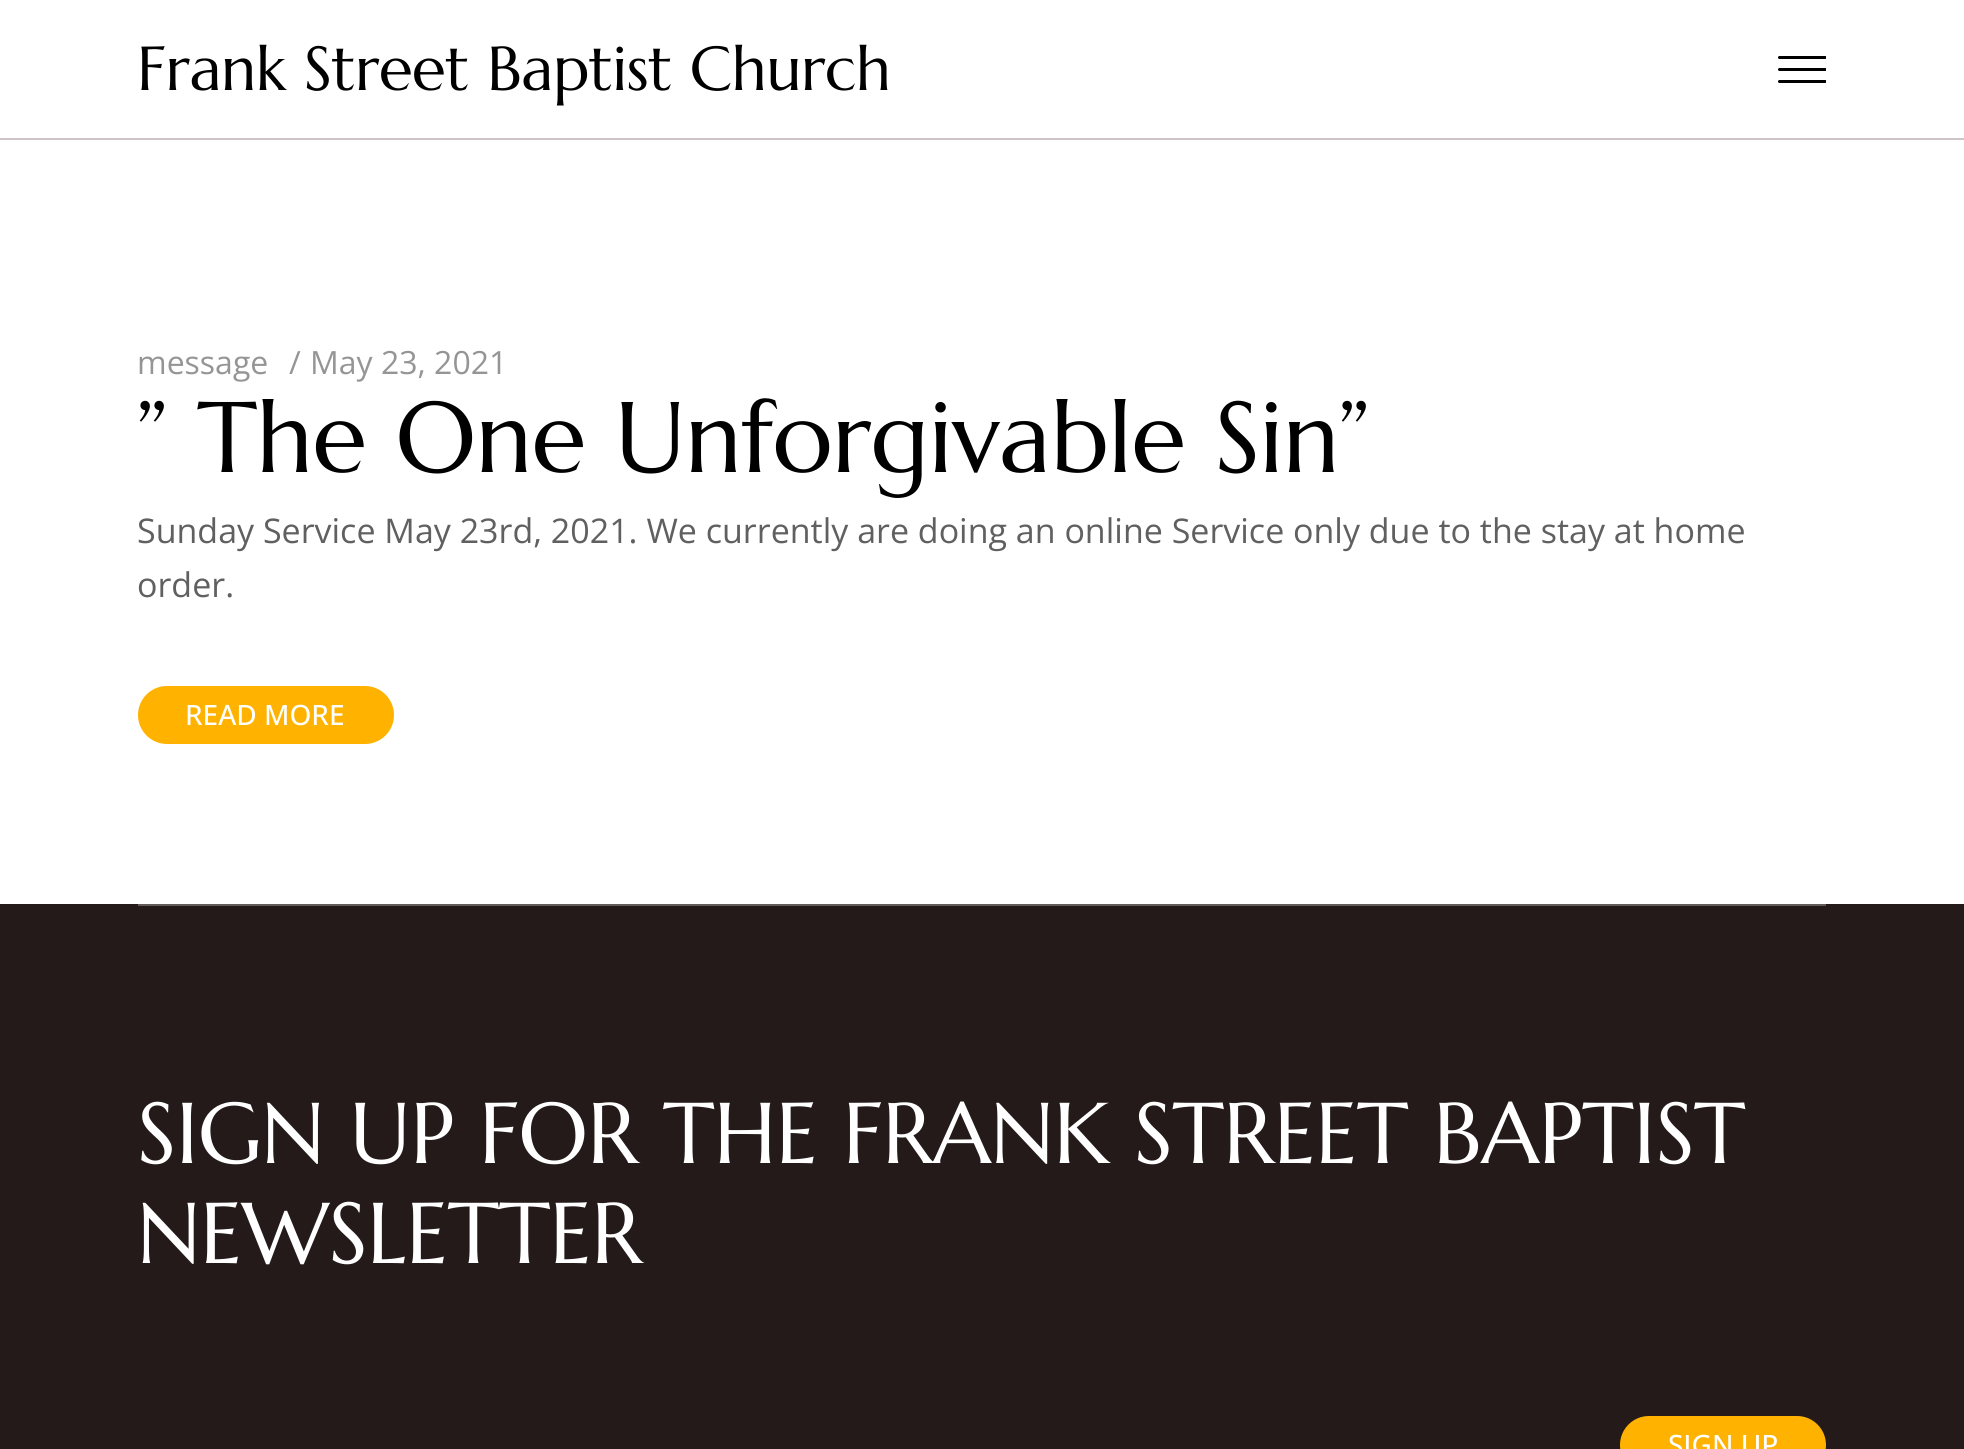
#include <cairo/cairo.h>
#include <math.h>
#include <stddef.h>

typedef struct { double x, y; const char *s; } line_t;
static cairo_t *cr;

static void rgb(unsigned color)
{
	cairo_set_source_rgb(cr, (color >> 16) / 255.0, (color >> 8 & 255) / 255.0, (color & 255) / 255.0);
}

static void tracked(double x, double y, const char *s, double letter, double word)
{
	cairo_move_to(cr, x, y);
	while (*s) {
		char ch[5] = {0};
		int n = 0;
		do ch[n++] = *s++; while ((*s & 0xC0) == 0x80);
		cairo_show_text(cr, ch);
		cairo_rel_move_to(cr, letter + word * (*ch == ' '), 0);
	}
}

static void rrect(double x, double y, double w, double h, double r)
{
	cairo_new_sub_path(cr);
	cairo_arc(cr, x + w - r, y + h - r, r, 0, M_PI / 2);
	cairo_arc(cr, x + r, y + h - r, r, M_PI / 2, M_PI);
	cairo_arc(cr, x + r, y + r, r, M_PI, 1.5 * M_PI);
	cairo_arc(cr, x + w - r, y + r, r, 1.5 * M_PI, 2 * M_PI);
	cairo_close_path(cr);
}

int main(void) {
	cairo_surface_t *surface = cairo_image_surface_create(CAIRO_FORMAT_RGB24, 1964, 1449);
	cr = cairo_create(surface);
	cairo_font_options_t *options = cairo_font_options_create();
	cairo_font_options_set_hint_metrics(options, CAIRO_HINT_METRICS_OFF);
	cairo_font_options_set_hint_style(options, CAIRO_HINT_STYLE_NONE);
	cairo_set_font_options(cr, options);
	cairo_set_miter_limit(cr, 4);
	rgb(0xffffff);
	cairo_paint(cr);
	rgb(0xcdc5c5);
	cairo_rectangle(cr, 0, 138, 1964, 2);
	cairo_fill(cr);
	cairo_save(cr);
	cairo_rectangle(cr, 1778, 56, 48, 28);
	cairo_clip(cr);
	cairo_new_path(cr);
	cairo_move_to(cr, 1779.5, 57.5);
	cairo_line_to(cr, 1825.5, 57.5);
	cairo_move_to(cr, 1779.5, 69.5);
	cairo_line_to(cr, 1825.5, 69.5);
	cairo_move_to(cr, 1779.5, 81.5);
	cairo_line_to(cr, 1825.5, 81.5);
	rgb(0x000000);
	cairo_set_line_width(cr, 3);
	cairo_set_line_cap(cr, CAIRO_LINE_CAP_ROUND);
	cairo_stroke(cr);
	cairo_restore(cr);
	rgb(0xffb300);
	rrect(138, 686, 256, 58, 29);
	cairo_fill(cr);
	rgb(0x241a1a);
	cairo_rectangle(cr, 0, 904, 1964, 545);
	cairo_fill(cr);
	rgb(0x625b5b);
	cairo_rectangle(cr, 138, 904, 1688, 2);
	cairo_fill(cr);
	rgb(0xffb300);
	rrect(1620, 1416, 206, 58, 29);
	cairo_fill(cr);
	cairo_select_font_face(cr, "Marcellus", CAIRO_FONT_SLANT_NORMAL, CAIRO_FONT_WEIGHT_NORMAL);
	cairo_set_font_size(cr, 62);
	rgb(0x000000);
	tracked(137, 90, "Frank Street Baptist Church", -0.4, 0);
	cairo_select_font_face(cr, "Open Sans", CAIRO_FONT_SLANT_NORMAL, CAIRO_FONT_WEIGHT_NORMAL);
	cairo_set_font_size(cr, 32);
	rgb(0x959595);
	{
		static const line_t items[] = {
			{137, 374, "message"},
			{289, 374, "/"},
			{310, 374, "May 23, 2021"},
		};
		for (size_t i = 0; i < sizeof items / sizeof *items; i++) {
			cairo_move_to(cr, items[i].x, items[i].y);
			cairo_show_text(cr, items[i].s);
		}
	}
	cairo_select_font_face(cr, "Marcellus", CAIRO_FONT_SLANT_NORMAL, CAIRO_FONT_WEIGHT_NORMAL);
	cairo_set_font_size(cr, 100);
	rgb(0x000000);
	tracked(137, 472, "” The One Unforgivable Sin”", -0.6, 0);
	cairo_select_font_face(cr, "Open Sans", CAIRO_FONT_SLANT_NORMAL, CAIRO_FONT_WEIGHT_NORMAL);
	cairo_set_font_size(cr, 34);
	rgb(0x606060);
	cairo_move_to(cr, 137, 543);
	cairo_show_text(cr, "Sunday Service May 23rd, 2021. We currently are doing an online Service only due to the stay at home");
	cairo_move_to(cr, 137, 597);
	cairo_show_text(cr, "order.");
	cairo_select_font_face(cr, "Open Sans Medium", CAIRO_FONT_SLANT_NORMAL, CAIRO_FONT_WEIGHT_NORMAL);
	cairo_set_font_size(cr, 28);
	rgb(0xffffff);
	cairo_move_to(cr, 185, 725);
	cairo_show_text(cr, "READ MORE");
	cairo_select_font_face(cr, "Marcellus", CAIRO_FONT_SLANT_NORMAL, CAIRO_FONT_WEIGHT_NORMAL);
	cairo_set_font_size(cr, 86);
	tracked(137, 1163, "SIGN UP FOR THE FRANK STREET BAPTIST", -0.5, 0);
	tracked(137, 1263, "NEWSLETTER", -0.5, 0);
	cairo_select_font_face(cr, "Open Sans Medium", CAIRO_FONT_SLANT_NORMAL, CAIRO_FONT_WEIGHT_NORMAL);
	cairo_set_font_size(cr, 28);
	cairo_move_to(cr, 1668, 1455);
	cairo_show_text(cr, "SIGN UP");
	cairo_surface_write_to_png(surface, "page.png");
	cairo_font_options_destroy(options);
	cairo_destroy(cr);
	cairo_surface_destroy(surface);
	return 0;
}
